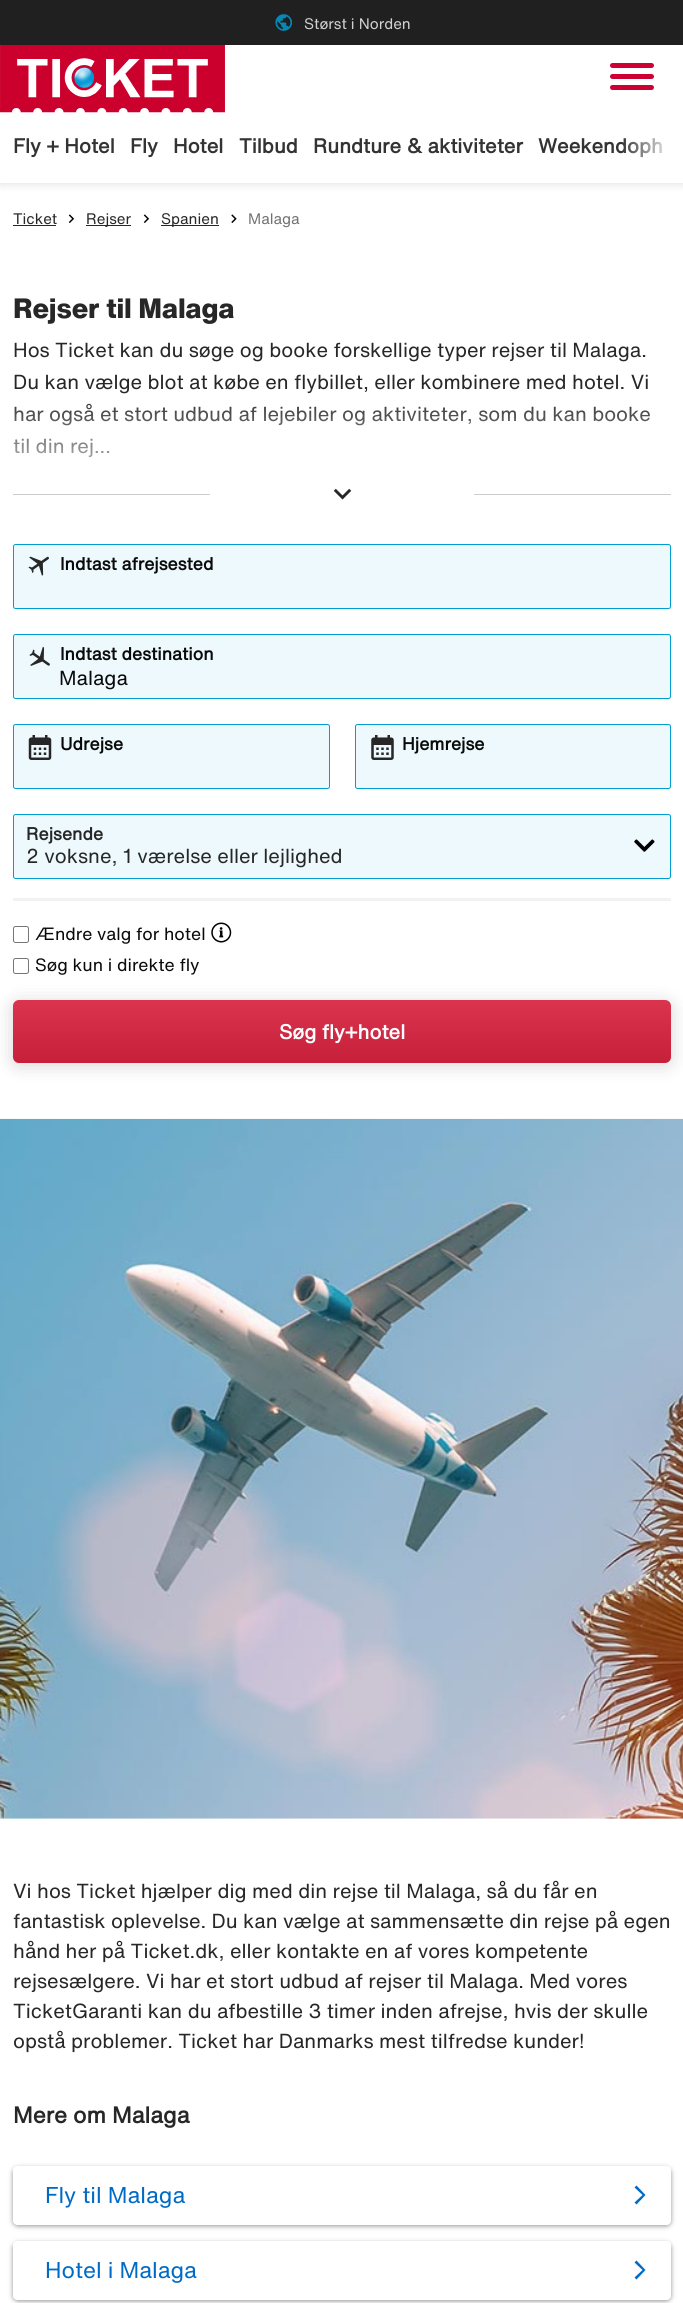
#include <cairo/cairo.h>
#include <math.h>
#include <stddef.h>

typedef struct { double x, y; const char *s; } line_t;
static cairo_t *cr;

static void rgb(unsigned color)
{
	cairo_set_source_rgb(cr, (color >> 16) / 255.0, (color >> 8 & 255) / 255.0, (color & 255) / 255.0);
}

static void tracked(double x, double y, const char *s, double letter, double word)
{
	cairo_move_to(cr, x, y);
	while (*s) {
		char ch[5] = {0};
		int n = 0;
		do ch[n++] = *s++; while ((*s & 0xC0) == 0x80);
		cairo_show_text(cr, ch);
		cairo_rel_move_to(cr, letter + word * (*ch == ' '), 0);
	}
}

static void rrect(double x, double y, double w, double h, double r)
{
	cairo_new_sub_path(cr);
	cairo_arc(cr, x + w - r, y + h - r, r, 0, M_PI / 2);
	cairo_arc(cr, x + r, y + h - r, r, M_PI / 2, M_PI);
	cairo_arc(cr, x + r, y + r, r, M_PI, 1.5 * M_PI);
	cairo_arc(cr, x + w - r, y + r, r, 1.5 * M_PI, 2 * M_PI);
	cairo_close_path(cr);
}

static void soft_shadow(double x, double y, double w, double h, double r, double blur, double alpha)
{
	cairo_push_group_with_content(cr, CAIRO_CONTENT_ALPHA);
	cairo_set_operator(cr, CAIRO_OPERATOR_SOURCE);
	for (int i = 15; i >= -15 && fmin(w, h) + blur * i / 3 > 0; i -= 2) {
		double e = blur * i / 6;
		cairo_set_source_rgba(cr, 0, 0, 0, alpha * erfc((i - 1) / 8.5) / 2);
		rrect(x - e, y - e, w + 2 * e, h + 2 * e, fmax(0, fmin(r + e + blur * .6, fmin(w, h) / 2 + e)));
		cairo_fill(cr);
	}
	cairo_pattern_t *soft = cairo_pop_group(cr);
	cairo_mask(cr, soft);
	cairo_pattern_destroy(soft);
}

static void image(const char *path, double x, double y, double w, double h)
{
	cairo_surface_t *image = cairo_image_surface_create_from_png(path);
	cairo_save(cr);
	cairo_set_source_surface(cr, image, x, y);
	cairo_rectangle(cr, x, y, w, h);
	cairo_fill(cr);
	cairo_restore(cr);
	cairo_surface_destroy(image);
}

int main(void) {
	cairo_surface_t *surface = cairo_image_surface_create(CAIRO_FORMAT_RGB24, 683, 2303);
	cr = cairo_create(surface);
	cairo_font_options_t *options = cairo_font_options_create();
	cairo_font_options_set_hint_metrics(options, CAIRO_HINT_METRICS_OFF);
	cairo_font_options_set_hint_style(options, CAIRO_HINT_STYLE_NONE);
	cairo_set_font_options(cr, options);
	cairo_set_miter_limit(cr, 4);
	cairo_pattern_t *gradient;
	rgb(0xffffff);
	cairo_paint(cr);
	rgb(0x000000);
	soft_shadow(0, 48, 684, 137, 0, 4, 0.1);
	rgb(0x202020);
	cairo_rectangle(cr, 0, 0, 683, 45);
	cairo_fill(cr);
	image("img/1.png", 275, 14, 18, 17);
	rgb(0xffffff);
	cairo_rectangle(cr, 0, 45, 683, 138);
	cairo_fill(cr);
	image("img/2.png", 0, 45, 225, 68);
	rgb(0xcc0033);
	rrect(610, 63, 44, 5, 2.5);
	cairo_fill(cr);
	rrect(610, 74, 44, 5, 2.5);
	cairo_fill(cr);
	rrect(610, 85, 44, 5, 2.5);
	cairo_fill(cr);
	rgb(0x272727);
	cairo_rectangle(cr, 13, 225, 43, 1);
	cairo_fill(cr);
	image("img/3.png", 68, 214, 7, 9);
	cairo_rectangle(cr, 86, 225, 45, 1);
	cairo_fill(cr);
	image("img/3.png", 143, 214, 7, 9);
	cairo_rectangle(cr, 161, 225, 58, 1);
	cairo_fill(cr);
	image("img/4.png", 231, 214, 6, 9);
	rgb(0xcccccc);
	cairo_rectangle(cr, 13, 494, 197, 1);
	cairo_fill(cr);
	image("img/5.png", 333, 488, 19, 12);
	cairo_rectangle(cr, 474, 494, 197, 1);
	cairo_fill(cr);
	rgb(0xedf9fd);
	rrect(13.5, 544.5, 657, 64, 2);
	cairo_fill_preserve(cr);
	rgb(0x009dd1);
	cairo_set_line_width(cr, 1);
	cairo_stroke(cr);
	image("img/6.png", 28, 556, 21, 20);
	rgb(0xedf9fd);
	rrect(13.5, 634.5, 657, 64, 2);
	cairo_fill_preserve(cr);
	rgb(0x009dd1);
	cairo_stroke(cr);
	image("img/7.png", 29, 646, 21, 20);
	rgb(0xedf9fd);
	rrect(13.5, 724.5, 316, 64, 2);
	cairo_fill_preserve(cr);
	rgb(0x009dd1);
	cairo_stroke(cr);
	image("img/8.png", 28, 735, 24, 25);
	rgb(0xedf9fd);
	rrect(355.5, 724.5, 315, 64, 2);
	cairo_fill_preserve(cr);
	rgb(0x009dd1);
	cairo_stroke(cr);
	image("img/9.png", 371, 735, 23, 25);
	rgb(0xedf9fd);
	rrect(13.5, 814.5, 657, 64, 2);
	cairo_fill_preserve(cr);
	rgb(0x009dd1);
	cairo_stroke(cr);
	image("img/10.png", 634, 839, 21, 13);
	rgb(0xf2f2f2);
	cairo_rectangle(cr, 13, 898, 658, 3);
	cairo_fill(cr);
	rrect(13.5, 926.5, 15, 16, 2);
	rgb(0x767676);
	cairo_stroke(cr);
	image("img/11.png", 211, 922, 21, 21);
	rrect(13.5, 958.5, 15, 15, 2);
	cairo_stroke(cr);
	rgb(0x000000);
	soft_shadow(13, 1003, 658, 62, 6, 10, 0.16);
	gradient = cairo_pattern_create_linear(342, 1000, 342, 1063);
	cairo_pattern_add_color_stop_rgba(gradient, 0, 0.859, 0.204, 0.306, 1);
	cairo_pattern_add_color_stop_rgba(gradient, 0.98, 0.78, 0.125, 0.231, 1);
	cairo_set_source(cr, gradient);
	cairo_pattern_destroy(gradient);
	rrect(13, 1000, 658, 63, 6);
	cairo_fill(cr);
	image("img/12.png", 0, 1118, 683, 701);
	cairo_save(cr);
	cairo_set_fill_rule(cr, CAIRO_FILL_RULE_EVEN_ODD);
	cairo_new_path(cr);
	cairo_move_to(cr, 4, 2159);
	cairo_line_to(cr, 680, 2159);
	cairo_line_to(cr, 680, 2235);
	cairo_line_to(cr, 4, 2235);
	cairo_close_path(cr);
	cairo_move_to(cr, 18, 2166);
	cairo_line_to(cr, 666, 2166);
	cairo_curve_to(cr, 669, 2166, 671, 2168, 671, 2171);
	cairo_line_to(cr, 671, 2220);
	cairo_curve_to(cr, 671, 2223, 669, 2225, 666, 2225);
	cairo_line_to(cr, 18, 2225);
	cairo_curve_to(cr, 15, 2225, 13, 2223, 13, 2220);
	cairo_line_to(cr, 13, 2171);
	cairo_curve_to(cr, 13, 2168, 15, 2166, 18, 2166);
	cairo_close_path(cr);
	cairo_clip(cr);
	rgb(0x272727);
	soft_shadow(13, 2168, 658, 58, 5, 2.5, 0.5);
	cairo_restore(cr);
	rgb(0x006bc7);
	cairo_new_path(cr);
	cairo_move_to(cr, 634.5, 2202.5);
	cairo_line_to(cr, 636.5, 2204.5);
	cairo_line_to(cr, 645.5, 2195);
	cairo_line_to(cr, 636.5, 2185.5);
	cairo_line_to(cr, 634.5, 2187.5);
	cairo_line_to(cr, 642.5, 2195);
	cairo_close_path(cr);
	cairo_fill(cr);
	cairo_save(cr);
	cairo_set_fill_rule(cr, CAIRO_FILL_RULE_EVEN_ODD);
	cairo_new_path(cr);
	cairo_move_to(cr, 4, 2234);
	cairo_line_to(cr, 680, 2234);
	cairo_line_to(cr, 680, 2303);
	cairo_line_to(cr, 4, 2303);
	cairo_close_path(cr);
	cairo_move_to(cr, 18, 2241);
	cairo_line_to(cr, 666, 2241);
	cairo_curve_to(cr, 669, 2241, 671, 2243, 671, 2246);
	cairo_line_to(cr, 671, 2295);
	cairo_curve_to(cr, 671, 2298, 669, 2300, 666, 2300);
	cairo_line_to(cr, 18, 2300);
	cairo_curve_to(cr, 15, 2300, 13, 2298, 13, 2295);
	cairo_line_to(cr, 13, 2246);
	cairo_curve_to(cr, 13, 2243, 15, 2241, 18, 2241);
	cairo_close_path(cr);
	cairo_clip(cr);
	rgb(0x272727);
	soft_shadow(13, 2243, 658, 58, 5, 2.5, 0.5);
	cairo_restore(cr);
	cairo_new_path(cr);
	cairo_move_to(cr, 634.5, 2277.5);
	cairo_line_to(cr, 636.5, 2279.5);
	cairo_line_to(cr, 645.5, 2270);
	cairo_line_to(cr, 636.5, 2260.5);
	cairo_line_to(cr, 634.5, 2262.5);
	cairo_line_to(cr, 642.5, 2270);
	cairo_close_path(cr);
	cairo_fill(cr);
	cairo_select_font_face(cr, "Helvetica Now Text", CAIRO_FONT_SLANT_NORMAL, CAIRO_FONT_WEIGHT_NORMAL);
	cairo_set_font_size(cr, 15);
	rgb(0xd2d2d2);
	cairo_move_to(cr, 304, 29);
	cairo_show_text(cr, "Størst i Norden");
	cairo_select_font_face(cr, "Helvetica Now Text", CAIRO_FONT_SLANT_NORMAL, CAIRO_FONT_WEIGHT_BOLD);
	cairo_set_font_size(cr, 20);
	rgb(0x333333);
	{
		static const line_t items[] = {
			{13, 153, "Fly + Hotel"},
			{130, 153, "Fly"},
			{173, 153, "Hotel"},
			{239, 153, "Tilbud"},
			{313, 153, "Rundture & aktiviteter"},
			{538, 153, "Weekendoph"},
		};
		for (size_t i = 0; i < sizeof items / sizeof *items; i++) {
			cairo_move_to(cr, items[i].x, items[i].y);
			cairo_show_text(cr, items[i].s);
		}
	}
	gradient = cairo_pattern_create_linear(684, 157, 621, 157);
	cairo_pattern_add_color_stop_rgba(gradient, 0.15, 1, 1, 1, 1);
	cairo_pattern_add_color_stop_rgba(gradient, 1, 1, 1, 1, 0);
	cairo_set_source(cr, gradient);
	cairo_pattern_destroy(gradient);
	cairo_rectangle(cr, 622, 138, 40, 20);
	cairo_fill(cr);
	cairo_select_font_face(cr, "Helvetica Now Text", CAIRO_FONT_SLANT_NORMAL, CAIRO_FONT_WEIGHT_NORMAL);
	cairo_set_font_size(cr, 15);
	rgb(0x272727);
	{
		static const line_t items[] = {
			{13, 224, "Ticket"},
			{86, 224, "Rejser"},
			{161, 224, "Spanien"},
		};
		for (size_t i = 0; i < sizeof items / sizeof *items; i++) {
			cairo_move_to(cr, items[i].x, items[i].y);
			cairo_show_text(cr, items[i].s);
		}
	}
	rgb(0x727272);
	cairo_move_to(cr, 248, 224);
	cairo_show_text(cr, "Malaga");
	cairo_select_font_face(cr, "Helvetica Now Text ExtraBold", CAIRO_FONT_SLANT_NORMAL, CAIRO_FONT_WEIGHT_NORMAL);
	cairo_set_font_size(cr, 27.5);
	rgb(0x272727);
	tracked(13, 318, "Rejser til Malaga", -0.3, 0);
	cairo_select_font_face(cr, "Helvetica Now Text", CAIRO_FONT_SLANT_NORMAL, CAIRO_FONT_WEIGHT_NORMAL);
	cairo_set_font_size(cr, 20);
	{
		static const line_t items[] = {
			{13, 357, "Hos Ticket kan du søge og booke forskellige typer rejser til Malaga."},
			{13, 389, "Du kan vælge blot at købe en flybillet, eller kombinere med hotel. Vi"},
			{13, 421, "har også et stort udbud af lejebiler og aktiviteter, som du kan booke"},
			{13, 453, "til din rej..."},
		};
		for (size_t i = 0; i < sizeof items / sizeof *items; i++) {
			cairo_move_to(cr, items[i].x, items[i].y);
			cairo_show_text(cr, items[i].s);
		}
	}
	gradient = cairo_pattern_create_linear(342, 519, 342, 290);
	cairo_pattern_add_color_stop_rgba(gradient, 0.05, 1, 1, 1, 1);
	cairo_pattern_add_color_stop_rgba(gradient, 0.55, 1, 1, 1, 0);
	cairo_set_source(cr, gradient);
	cairo_pattern_destroy(gradient);
	cairo_rectangle(cr, 13, 403, 637, 55);
	cairo_fill(cr);
	cairo_select_font_face(cr, "Helvetica Now Text", CAIRO_FONT_SLANT_NORMAL, CAIRO_FONT_WEIGHT_BOLD);
	cairo_set_font_size(cr, 17.5);
	rgb(0x0a0a0a);
	cairo_move_to(cr, 60, 570);
	cairo_show_text(cr, "Indtast afrejsested");
	cairo_move_to(cr, 60, 660);
	cairo_show_text(cr, "Indtast destination");
	cairo_select_font_face(cr, "Helvetica Now Text", CAIRO_FONT_SLANT_NORMAL, CAIRO_FONT_WEIGHT_NORMAL);
	cairo_set_font_size(cr, 20);
	cairo_move_to(cr, 59, 685);
	cairo_show_text(cr, "Malaga");
	cairo_select_font_face(cr, "Helvetica Now Text", CAIRO_FONT_SLANT_NORMAL, CAIRO_FONT_WEIGHT_BOLD);
	cairo_set_font_size(cr, 17.5);
	cairo_move_to(cr, 60, 750);
	cairo_show_text(cr, "Udrejse");
	cairo_move_to(cr, 402, 750);
	cairo_show_text(cr, "Hjemrejse");
	rgb(0x272727);
	cairo_move_to(cr, 26, 840);
	cairo_show_text(cr, "Rejsende");
	cairo_select_font_face(cr, "Helvetica Now Text", CAIRO_FONT_SLANT_NORMAL, CAIRO_FONT_WEIGHT_NORMAL);
	cairo_set_font_size(cr, 20);
	cairo_move_to(cr, 26, 863);
	cairo_show_text(cr, "2 voksne, 1 værelse eller lejlighed");
	cairo_set_font_size(cr, 17.5);
	rgb(0x0a0a0a);
	cairo_move_to(cr, 35, 940);
	cairo_show_text(cr, "Ændre valg for hotel");
	cairo_move_to(cr, 35, 971);
	cairo_show_text(cr, "Søg kun i direkte fly");
	cairo_select_font_face(cr, "Helvetica Now Text", CAIRO_FONT_SLANT_NORMAL, CAIRO_FONT_WEIGHT_BOLD);
	cairo_set_font_size(cr, 20);
	rgb(0xffffff);
	cairo_move_to(cr, 279, 1039);
	cairo_show_text(cr, "Søg fly+hotel");
	cairo_select_font_face(cr, "Helvetica Now Text", CAIRO_FONT_SLANT_NORMAL, CAIRO_FONT_WEIGHT_NORMAL);
	rgb(0x272727);
	{
		static const line_t items[] = {
			{13, 1898, "Vi hos Ticket hjælper dig med din rejse til Malaga, så du får en"},
			{13, 1928, "fantastisk oplevelse. Du kan vælge at sammensætte din rejse på egen"},
			{13, 1958, "hånd her på Ticket.dk, eller kontakte en af vores kompetente"},
			{13, 1988, "rejsesælgere. Vi har et stort udbud af rejser til Malaga. Med vores"},
			{13, 2018, "TicketGaranti kan du afbestille 3 timer inden afrejse, hvis der skulle"},
			{13, 2048, "opstå problemer. Ticket har Danmarks mest tilfredse kunder!"},
		};
		for (size_t i = 0; i < sizeof items / sizeof *items; i++) {
			cairo_move_to(cr, items[i].x, items[i].y);
			cairo_show_text(cr, items[i].s);
		}
	}
	cairo_select_font_face(cr, "Helvetica Now Text", CAIRO_FONT_SLANT_NORMAL, CAIRO_FONT_WEIGHT_BOLD);
	cairo_set_font_size(cr, 22.5);
	cairo_move_to(cr, 13, 2123);
	cairo_show_text(cr, "Mere om Malaga");
	cairo_select_font_face(cr, "Helvetica Now Text", CAIRO_FONT_SLANT_NORMAL, CAIRO_FONT_WEIGHT_NORMAL);
	rgb(0x006bc7);
	cairo_move_to(cr, 45, 2203);
	cairo_show_text(cr, "Fly til Malaga");
	cairo_move_to(cr, 45, 2278);
	cairo_show_text(cr, "Hotel i Malaga");
	cairo_surface_write_to_png(surface, "page.png");
	cairo_font_options_destroy(options);
	cairo_destroy(cr);
	cairo_surface_destroy(surface);
	return 0;
}
